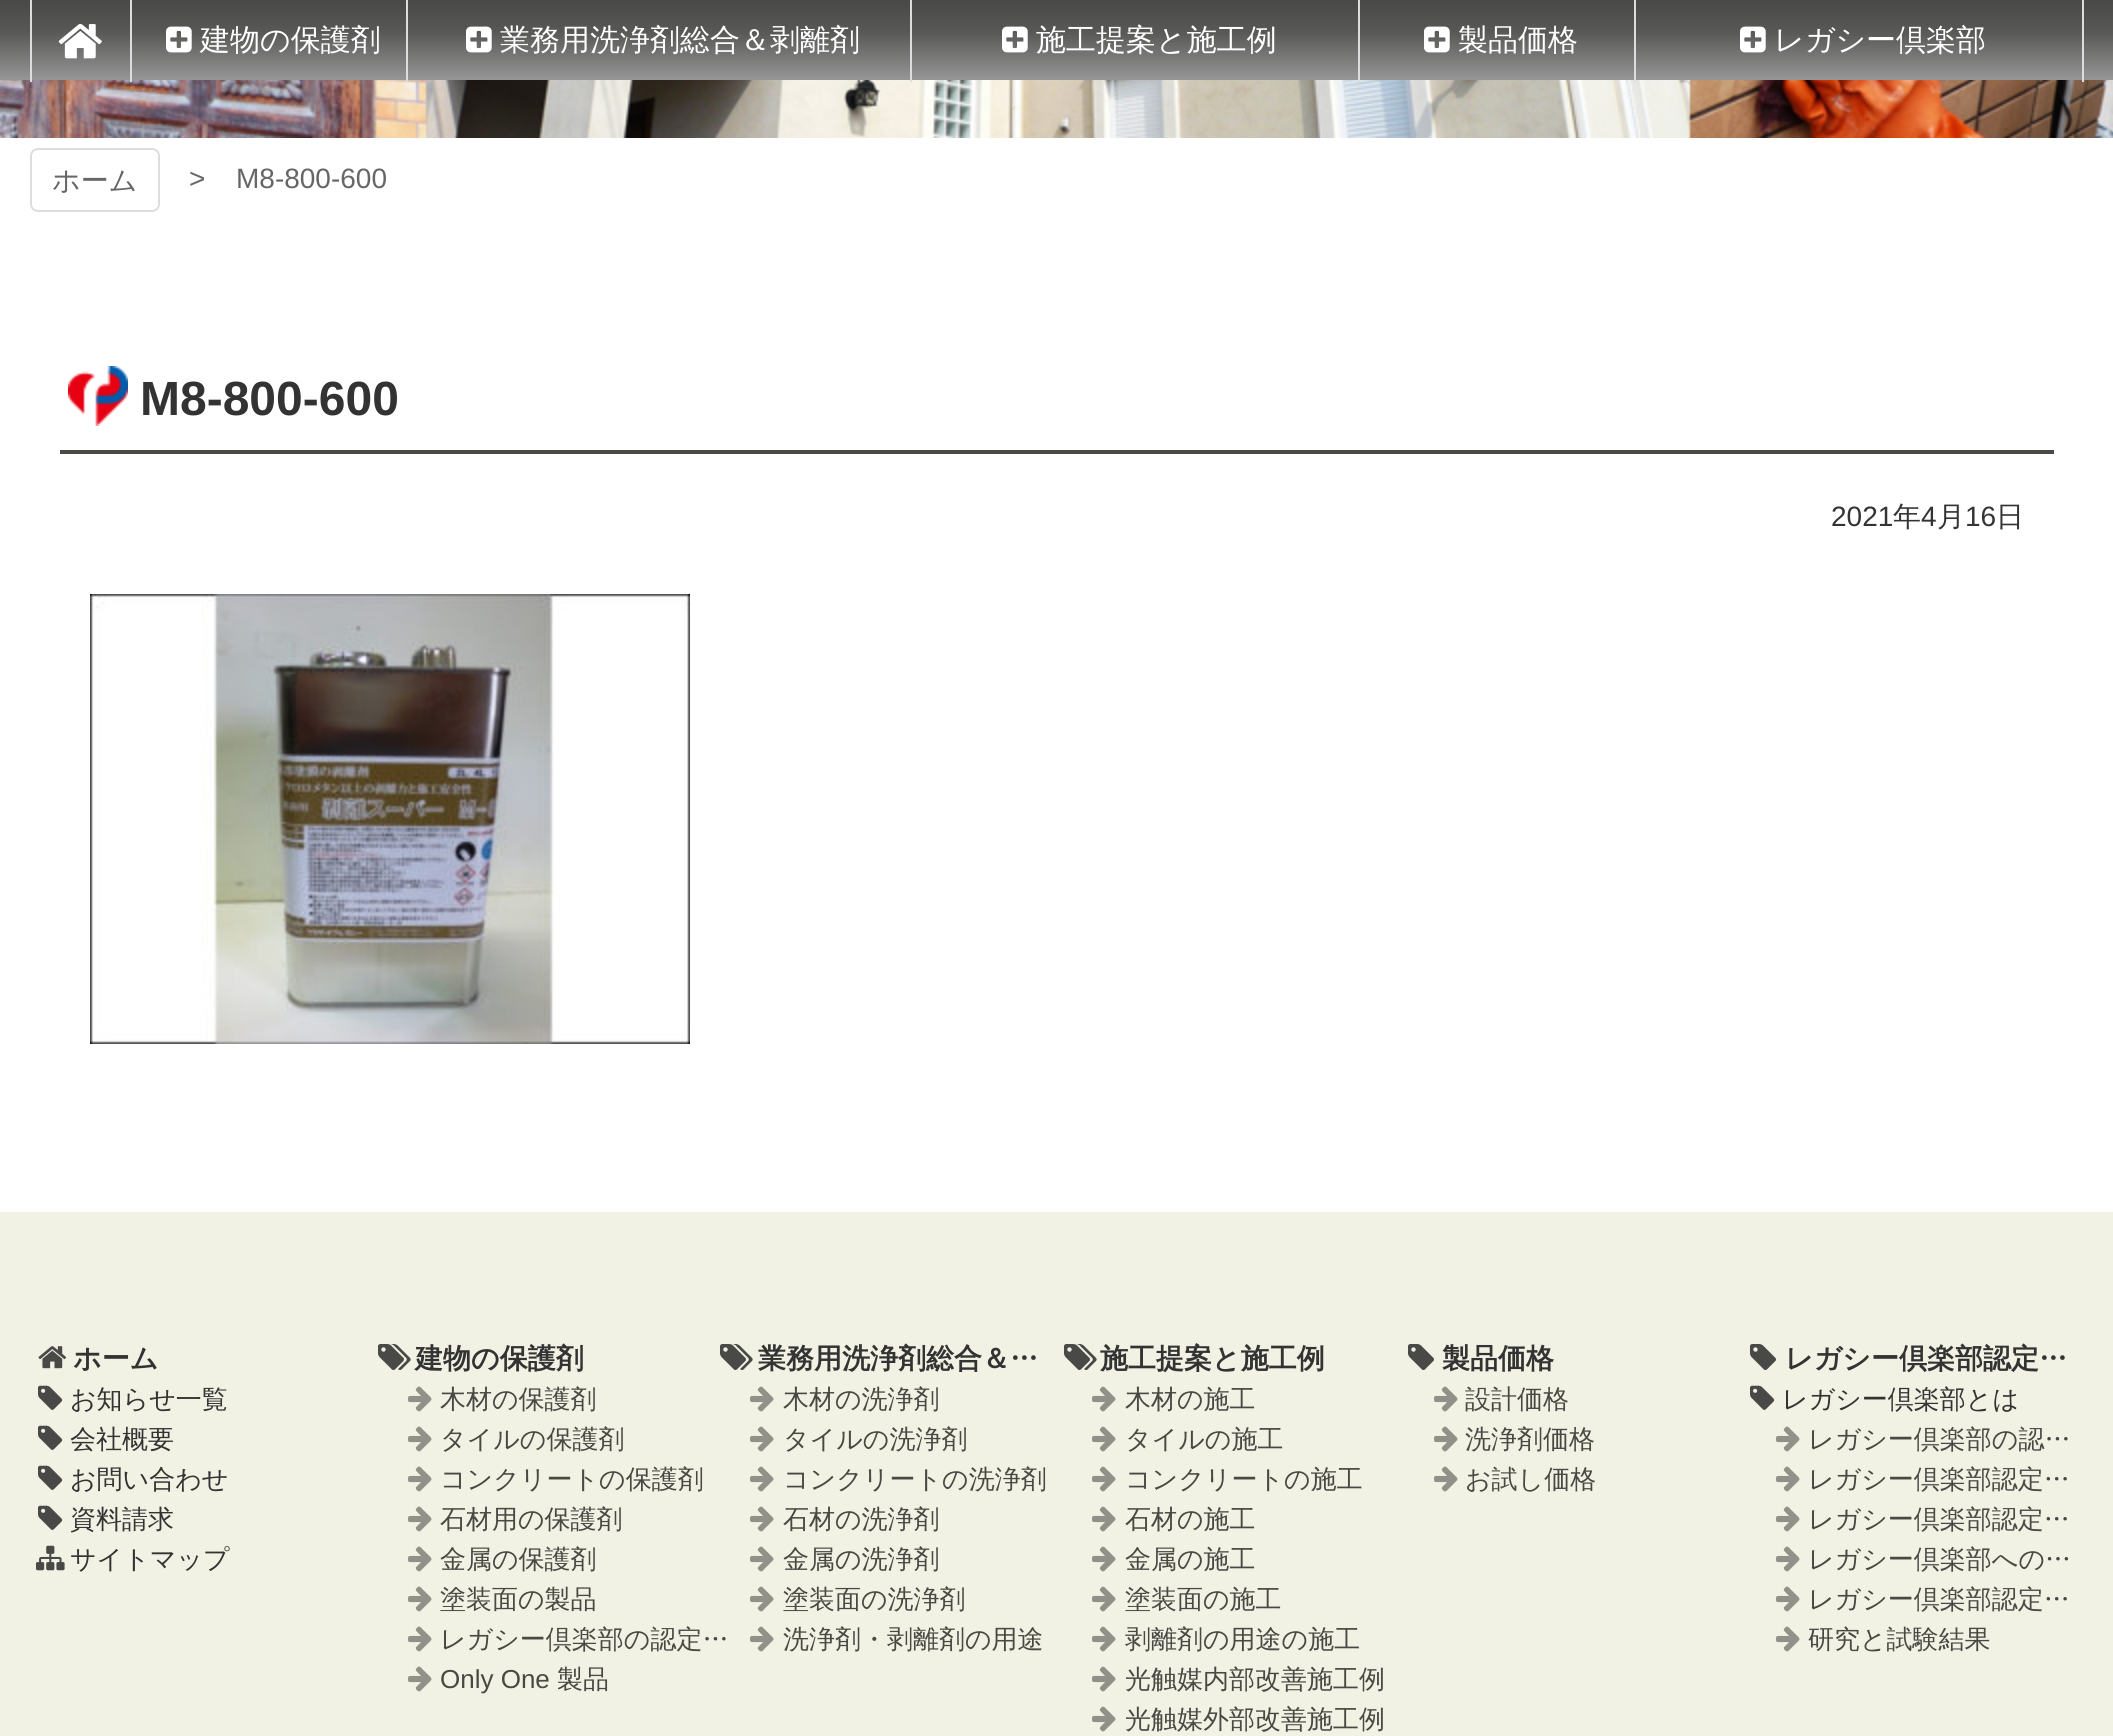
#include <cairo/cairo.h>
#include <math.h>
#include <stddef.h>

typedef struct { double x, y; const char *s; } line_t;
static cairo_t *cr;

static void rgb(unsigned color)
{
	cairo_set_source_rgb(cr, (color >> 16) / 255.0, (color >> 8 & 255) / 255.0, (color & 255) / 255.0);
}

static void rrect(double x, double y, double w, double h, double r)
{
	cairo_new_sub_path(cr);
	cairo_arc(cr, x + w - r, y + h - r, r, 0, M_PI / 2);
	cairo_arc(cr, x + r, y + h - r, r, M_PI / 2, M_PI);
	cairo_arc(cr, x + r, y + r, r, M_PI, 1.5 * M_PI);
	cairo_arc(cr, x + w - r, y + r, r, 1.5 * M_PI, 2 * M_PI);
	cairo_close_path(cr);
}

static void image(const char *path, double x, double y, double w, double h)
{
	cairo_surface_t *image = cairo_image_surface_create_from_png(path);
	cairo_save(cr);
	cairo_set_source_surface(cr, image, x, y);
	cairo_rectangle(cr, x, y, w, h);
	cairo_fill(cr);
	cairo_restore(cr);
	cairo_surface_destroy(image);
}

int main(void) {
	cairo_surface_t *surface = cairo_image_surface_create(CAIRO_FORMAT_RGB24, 2113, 1736);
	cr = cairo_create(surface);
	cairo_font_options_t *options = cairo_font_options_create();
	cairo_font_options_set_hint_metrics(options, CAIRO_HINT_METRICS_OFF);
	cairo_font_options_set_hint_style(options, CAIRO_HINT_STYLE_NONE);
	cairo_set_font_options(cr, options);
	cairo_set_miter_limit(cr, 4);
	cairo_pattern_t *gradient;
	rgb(0xffffff);
	cairo_paint(cr);
	gradient = cairo_pattern_create_linear(1057, 0, 1057, 80);
	cairo_pattern_add_color_stop_rgba(gradient, 0, 0.286, 0.286, 0.282, 1);
	cairo_pattern_add_color_stop_rgba(gradient, 0.4, 0.345, 0.345, 0.341, 1);
	cairo_pattern_add_color_stop_rgba(gradient, 1, 0.588, 0.588, 0.588, 1);
	cairo_set_source(cr, gradient);
	cairo_pattern_destroy(gradient);
	cairo_rectangle(cr, 0, 0, 2113, 80);
	cairo_fill(cr);
	image("img/3.png", 0, 80, 2113, 58);
	rgb(0xdddddd);
	cairo_rectangle(cr, 30, 0, 2, 82);
	cairo_fill(cr);
	image("img/1.png", 58, 24, 44, 35);
	cairo_rectangle(cr, 130, 0, 2, 82);
	cairo_fill(cr);
	image("img/2.png", 166, 26, 26, 27);
	cairo_rectangle(cr, 406, 0, 2, 82);
	cairo_fill(cr);
	image("img/2.png", 466, 26, 26, 27);
	cairo_rectangle(cr, 910, 0, 2, 82);
	cairo_fill(cr);
	image("img/2.png", 1002, 26, 26, 27);
	cairo_rectangle(cr, 1358, 0, 2, 82);
	cairo_fill(cr);
	image("img/2.png", 1424, 26, 26, 27);
	cairo_rectangle(cr, 2082, 0, 2, 82);
	cairo_fill(cr);
	cairo_rectangle(cr, 1634, 0, 2, 82);
	cairo_fill(cr);
	image("img/2.png", 1740, 26, 26, 27);
	rrect(31, 149, 128, 62, 7);
	cairo_stroke(cr);
	rgb(0x494948);
	cairo_rectangle(cr, 60, 450, 1994, 4);
	cairo_fill(cr);
	image("img/4.png", 68, 366, 60, 60);
	image("img/5.png", 90, 594, 600, 450);
	rgb(0xf2f2e4);
	cairo_rectangle(cr, 0, 1212, 2113, 524);
	cairo_fill(cr);
	image("img/6.png", 38, 1346, 29, 23);
	image("img/7.png", 38, 1385, 25, 25);
	image("img/7.png", 38, 1425, 25, 25);
	image("img/7.png", 38, 1465, 25, 25);
	image("img/7.png", 38, 1505, 25, 25);
	image("img/8.png", 36, 1545, 29, 26);
	image("img/9.png", 378, 1344, 33, 26);
	image("img/10.png", 408, 1386, 24, 26);
	image("img/10.png", 408, 1426, 24, 26);
	image("img/10.png", 408, 1466, 24, 26);
	image("img/10.png", 408, 1506, 24, 26);
	image("img/10.png", 408, 1546, 24, 26);
	image("img/10.png", 408, 1586, 24, 26);
	image("img/10.png", 408, 1626, 24, 26);
	image("img/10.png", 408, 1666, 24, 26);
	image("img/9.png", 720, 1344, 33, 26);
	image("img/10.png", 750, 1386, 24, 26);
	image("img/10.png", 750, 1426, 24, 26);
	image("img/10.png", 750, 1466, 24, 26);
	image("img/10.png", 750, 1506, 24, 26);
	image("img/10.png", 750, 1546, 24, 26);
	image("img/10.png", 750, 1586, 24, 26);
	image("img/10.png", 750, 1626, 24, 26);
	image("img/9.png", 1064, 1344, 33, 26);
	image("img/10.png", 1092, 1386, 24, 26);
	image("img/10.png", 1092, 1426, 24, 26);
	image("img/10.png", 1092, 1466, 24, 26);
	image("img/10.png", 1092, 1506, 24, 26);
	image("img/10.png", 1092, 1546, 24, 26);
	image("img/10.png", 1092, 1586, 24, 26);
	image("img/10.png", 1092, 1626, 24, 26);
	image("img/10.png", 1092, 1666, 24, 26);
	image("img/10.png", 1092, 1706, 24, 26);
	image("img/11.png", 1408, 1344, 26, 26);
	image("img/10.png", 1434, 1386, 24, 26);
	image("img/10.png", 1434, 1426, 24, 26);
	image("img/10.png", 1434, 1466, 24, 26);
	image("img/11.png", 1750, 1344, 26, 26);
	image("img/7.png", 1750, 1385, 25, 25);
	image("img/10.png", 1776, 1426, 24, 26);
	image("img/10.png", 1776, 1466, 24, 26);
	image("img/10.png", 1776, 1506, 24, 26);
	image("img/10.png", 1776, 1546, 24, 26);
	image("img/10.png", 1776, 1586, 24, 26);
	image("img/10.png", 1776, 1626, 24, 26);
	cairo_select_font_face(cr, "WenQuanYi Zen Hei Medium", CAIRO_FONT_SLANT_NORMAL, CAIRO_FONT_WEIGHT_NORMAL);
	cairo_set_font_size(cr, 30);
	rgb(0xffffff);
	{
		static const line_t items[] = {
			{200, 50, "建物の保護剤"},
			{500, 50, "業務用洗浄剤総合＆剥離剤"},
			{1036, 50, "施工提案と施工例"},
			{1458, 50, "製品価格"},
			{1774, 50, "レガシー倶楽部"},
		};
		for (size_t i = 0; i < sizeof items / sizeof *items; i++) {
			cairo_move_to(cr, items[i].x, items[i].y);
			cairo_show_text(cr, items[i].s);
		}
	}
	cairo_set_font_size(cr, 28);
	rgb(0x666666);
	cairo_move_to(cr, 52, 190);
	cairo_show_text(cr, "ホーム");
	cairo_select_font_face(cr, "Liberation Sans", CAIRO_FONT_SLANT_NORMAL, CAIRO_FONT_WEIGHT_NORMAL);
	cairo_move_to(cr, 189, 188);
	cairo_show_text(cr, ">");
	cairo_move_to(cr, 236, 188);
	cairo_show_text(cr, "M8-800-600");
	cairo_select_font_face(cr, "Liberation Sans", CAIRO_FONT_SLANT_NORMAL, CAIRO_FONT_WEIGHT_BOLD);
	cairo_set_font_size(cr, 48);
	rgb(0x333333);
	cairo_move_to(cr, 140, 415);
	cairo_show_text(cr, "M8-800-600");
	cairo_select_font_face(cr, "Liberation Sans", CAIRO_FONT_SLANT_NORMAL, CAIRO_FONT_WEIGHT_NORMAL);
	cairo_set_font_size(cr, 28);
	cairo_move_to(cr, 1831, 526);
	cairo_show_text(cr, "2021");
	cairo_select_font_face(cr, "WenQuanYi Zen Hei Medium", CAIRO_FONT_SLANT_NORMAL, CAIRO_FONT_WEIGHT_NORMAL);
	cairo_move_to(cr, 1893, 526);
	cairo_show_text(cr, "年");
	cairo_select_font_face(cr, "Liberation Sans", CAIRO_FONT_SLANT_NORMAL, CAIRO_FONT_WEIGHT_NORMAL);
	cairo_move_to(cr, 1921, 526);
	cairo_show_text(cr, "4");
	cairo_select_font_face(cr, "WenQuanYi Zen Hei Medium", CAIRO_FONT_SLANT_NORMAL, CAIRO_FONT_WEIGHT_NORMAL);
	cairo_move_to(cr, 1937, 526);
	cairo_show_text(cr, "月");
	cairo_select_font_face(cr, "Liberation Sans", CAIRO_FONT_SLANT_NORMAL, CAIRO_FONT_WEIGHT_NORMAL);
	cairo_move_to(cr, 1965, 526);
	cairo_show_text(cr, "16");
	cairo_select_font_face(cr, "WenQuanYi Zen Hei Medium", CAIRO_FONT_SLANT_NORMAL, CAIRO_FONT_WEIGHT_NORMAL);
	cairo_move_to(cr, 1996, 526);
	cairo_show_text(cr, "日");
	cairo_select_font_face(cr, "WenQuanYi Zen Hei", CAIRO_FONT_SLANT_NORMAL, CAIRO_FONT_WEIGHT_BOLD);
	cairo_move_to(cr, 73, 1368);
	cairo_show_text(cr, "ホーム");
	cairo_select_font_face(cr, "WenQuanYi Zen Hei Medium", CAIRO_FONT_SLANT_NORMAL, CAIRO_FONT_WEIGHT_NORMAL);
	cairo_set_font_size(cr, 26);
	{
		static const line_t items[] = {
			{70, 1408, "お知らせ一覧"},
			{70, 1448, "会社概要"},
			{70, 1488, "お問い合わせ"},
			{70, 1528, "資料請求"},
			{70, 1568, "サイトマップ"},
		};
		for (size_t i = 0; i < sizeof items / sizeof *items; i++) {
			cairo_move_to(cr, items[i].x, items[i].y);
			cairo_show_text(cr, items[i].s);
		}
	}
	cairo_select_font_face(cr, "WenQuanYi Zen Hei", CAIRO_FONT_SLANT_NORMAL, CAIRO_FONT_WEIGHT_BOLD);
	cairo_set_font_size(cr, 28);
	cairo_move_to(cr, 415, 1368);
	cairo_show_text(cr, "建物の保護剤");
	cairo_select_font_face(cr, "WenQuanYi Zen Hei Medium", CAIRO_FONT_SLANT_NORMAL, CAIRO_FONT_WEIGHT_NORMAL);
	cairo_set_font_size(cr, 26);
	rgb(0x494944);
	{
		static const line_t items[] = {
			{440, 1408, "木材の保護剤"},
			{440, 1448, "タイルの保護剤"},
			{440, 1488, "コンクリートの保護剤"},
			{440, 1528, "石材用の保護剤"},
			{440, 1568, "金属の保護剤"},
			{440, 1608, "塗装面の製品"},
			{440, 1648, "レガシー倶楽部の認定…"},
		};
		for (size_t i = 0; i < sizeof items / sizeof *items; i++) {
			cairo_move_to(cr, items[i].x, items[i].y);
			cairo_show_text(cr, items[i].s);
		}
	}
	cairo_select_font_face(cr, "Liberation Sans", CAIRO_FONT_SLANT_NORMAL, CAIRO_FONT_WEIGHT_NORMAL);
	cairo_move_to(cr, 440, 1688);
	cairo_show_text(cr, "Only One");
	cairo_select_font_face(cr, "WenQuanYi Zen Hei Medium", CAIRO_FONT_SLANT_NORMAL, CAIRO_FONT_WEIGHT_NORMAL);
	cairo_move_to(cr, 557, 1688);
	cairo_show_text(cr, "製品");
	cairo_select_font_face(cr, "WenQuanYi Zen Hei", CAIRO_FONT_SLANT_NORMAL, CAIRO_FONT_WEIGHT_BOLD);
	cairo_set_font_size(cr, 28);
	rgb(0x333333);
	cairo_move_to(cr, 758, 1368);
	cairo_show_text(cr, "業務用洗浄剤総合＆…");
	cairo_select_font_face(cr, "WenQuanYi Zen Hei Medium", CAIRO_FONT_SLANT_NORMAL, CAIRO_FONT_WEIGHT_NORMAL);
	cairo_set_font_size(cr, 26);
	rgb(0x494944);
	{
		static const line_t items[] = {
			{783, 1408, "木材の洗浄剤"},
			{783, 1448, "タイルの洗浄剤"},
			{783, 1488, "コンクリートの洗浄剤"},
			{783, 1528, "石材の洗浄剤"},
			{783, 1568, "金属の洗浄剤"},
			{783, 1608, "塗装面の洗浄剤"},
			{783, 1648, "洗浄剤・剥離剤の用途"},
		};
		for (size_t i = 0; i < sizeof items / sizeof *items; i++) {
			cairo_move_to(cr, items[i].x, items[i].y);
			cairo_show_text(cr, items[i].s);
		}
	}
	cairo_select_font_face(cr, "WenQuanYi Zen Hei", CAIRO_FONT_SLANT_NORMAL, CAIRO_FONT_WEIGHT_BOLD);
	cairo_set_font_size(cr, 28);
	rgb(0x333333);
	cairo_move_to(cr, 1100, 1368);
	cairo_show_text(cr, "施工提案と施工例");
	cairo_select_font_face(cr, "WenQuanYi Zen Hei Medium", CAIRO_FONT_SLANT_NORMAL, CAIRO_FONT_WEIGHT_NORMAL);
	cairo_set_font_size(cr, 26);
	rgb(0x494944);
	{
		static const line_t items[] = {
			{1125, 1408, "木材の施工"},
			{1125, 1448, "タイルの施工"},
			{1125, 1488, "コンクリートの施工"},
			{1125, 1528, "石材の施工"},
			{1125, 1568, "金属の施工"},
			{1125, 1608, "塗装面の施工"},
			{1125, 1648, "剥離剤の用途の施工"},
			{1125, 1688, "光触媒内部改善施工例"},
			{1125, 1728, "光触媒外部改善施工例"},
		};
		for (size_t i = 0; i < sizeof items / sizeof *items; i++) {
			cairo_move_to(cr, items[i].x, items[i].y);
			cairo_show_text(cr, items[i].s);
		}
	}
	cairo_select_font_face(cr, "WenQuanYi Zen Hei", CAIRO_FONT_SLANT_NORMAL, CAIRO_FONT_WEIGHT_BOLD);
	cairo_set_font_size(cr, 28);
	rgb(0x333333);
	cairo_move_to(cr, 1442, 1368);
	cairo_show_text(cr, "製品価格");
	cairo_select_font_face(cr, "WenQuanYi Zen Hei Medium", CAIRO_FONT_SLANT_NORMAL, CAIRO_FONT_WEIGHT_NORMAL);
	cairo_set_font_size(cr, 26);
	rgb(0x494944);
	{
		static const line_t items[] = {
			{1465, 1408, "設計価格"},
			{1465, 1448, "洗浄剤価格"},
			{1465, 1488, "お試し価格"},
		};
		for (size_t i = 0; i < sizeof items / sizeof *items; i++) {
			cairo_move_to(cr, items[i].x, items[i].y);
			cairo_show_text(cr, items[i].s);
		}
	}
	cairo_select_font_face(cr, "WenQuanYi Zen Hei", CAIRO_FONT_SLANT_NORMAL, CAIRO_FONT_WEIGHT_BOLD);
	cairo_set_font_size(cr, 28);
	rgb(0x333333);
	cairo_move_to(cr, 1785, 1368);
	cairo_show_text(cr, "レガシー倶楽部認定…");
	cairo_select_font_face(cr, "WenQuanYi Zen Hei Medium", CAIRO_FONT_SLANT_NORMAL, CAIRO_FONT_WEIGHT_NORMAL);
	cairo_set_font_size(cr, 26);
	cairo_move_to(cr, 1782, 1408);
	cairo_show_text(cr, "レガシー倶楽部とは");
	rgb(0x494944);
	{
		static const line_t items[] = {
			{1808, 1448, "レガシー倶楽部の認…"},
			{1808, 1488, "レガシー倶楽部認定…"},
			{1808, 1528, "レガシー倶楽部認定…"},
			{1808, 1568, "レガシー倶楽部への…"},
			{1808, 1608, "レガシー倶楽部認定…"},
			{1808, 1648, "研究と試験結果"},
		};
		for (size_t i = 0; i < sizeof items / sizeof *items; i++) {
			cairo_move_to(cr, items[i].x, items[i].y);
			cairo_show_text(cr, items[i].s);
		}
	}
	cairo_surface_write_to_png(surface, "page.png");
	cairo_font_options_destroy(options);
	cairo_destroy(cr);
	cairo_surface_destroy(surface);
	return 0;
}
